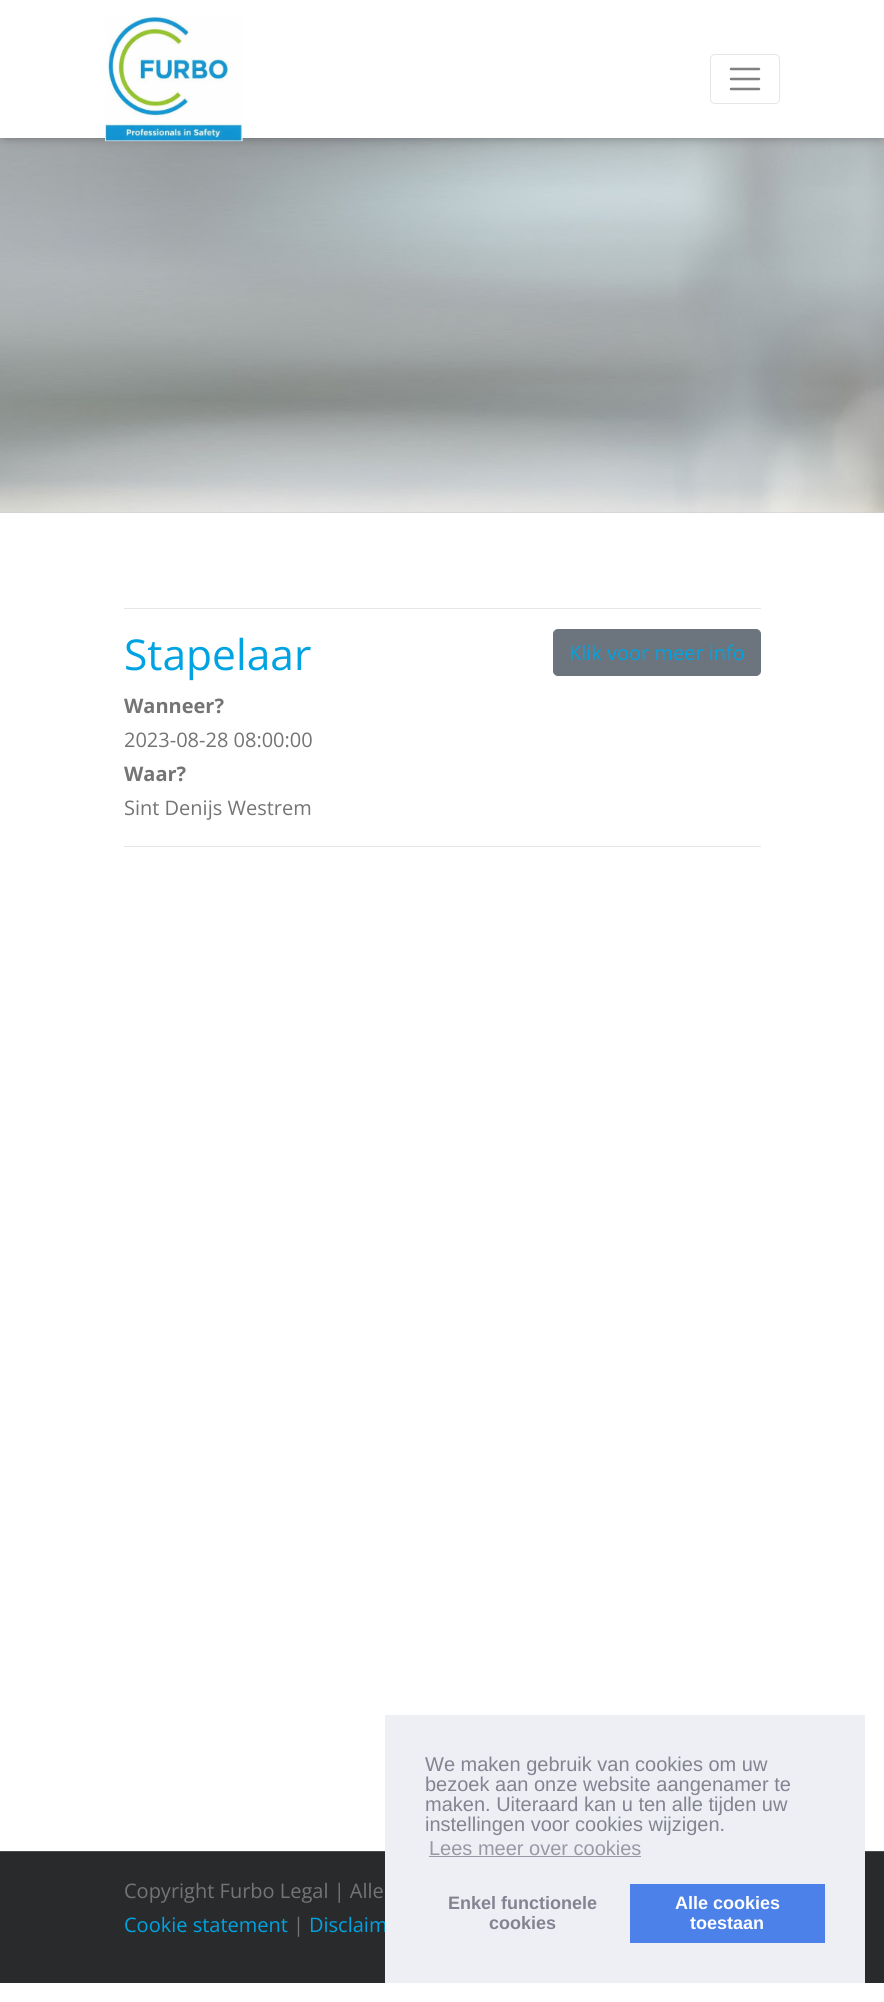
#include <cairo/cairo.h>
#include <math.h>
#include <stddef.h>

typedef struct { double x, y; const char *s; } line_t;
typedef struct { double x, y, w, h; unsigned color; } box_t;
static cairo_t *cr;

static void rgb(unsigned color)
{
	cairo_set_source_rgb(cr, (color >> 16) / 255.0, (color >> 8 & 255) / 255.0, (color & 255) / 255.0);
}

static void rrect(double x, double y, double w, double h, double r)
{
	cairo_new_sub_path(cr);
	cairo_arc(cr, x + w - r, y + h - r, r, 0, M_PI / 2);
	cairo_arc(cr, x + r, y + h - r, r, M_PI / 2, M_PI);
	cairo_arc(cr, x + r, y + r, r, M_PI, 1.5 * M_PI);
	cairo_arc(cr, x + w - r, y + r, r, 1.5 * M_PI, 2 * M_PI);
	cairo_close_path(cr);
}

static void soft_shadow(double x, double y, double w, double h, double r, double blur, double alpha)
{
	cairo_push_group_with_content(cr, CAIRO_CONTENT_ALPHA);
	cairo_set_operator(cr, CAIRO_OPERATOR_SOURCE);
	for (int i = 15; i >= -15 && fmin(w, h) + blur * i / 3 > 0; i -= 2) {
		double e = blur * i / 6;
		cairo_set_source_rgba(cr, 0, 0, 0, alpha * erfc((i - 1) / 8.5) / 2);
		rrect(x - e, y - e, w + 2 * e, h + 2 * e, fmax(0, fmin(r + e + blur * .6, fmin(w, h) / 2 + e)));
		cairo_fill(cr);
	}
	cairo_pattern_t *soft = cairo_pop_group(cr);
	cairo_mask(cr, soft);
	cairo_pattern_destroy(soft);
}

static void image(const char *path, double x, double y, double w, double h)
{
	cairo_surface_t *image = cairo_image_surface_create_from_png(path);
	cairo_save(cr);
	cairo_set_source_surface(cr, image, x, y);
	cairo_rectangle(cr, x, y, w, h);
	cairo_fill(cr);
	cairo_restore(cr);
	cairo_surface_destroy(image);
}

int main(void) {
	cairo_surface_t *surface = cairo_image_surface_create(CAIRO_FORMAT_RGB24, 884, 2002);
	cr = cairo_create(surface);
	cairo_font_options_t *options = cairo_font_options_create();
	cairo_font_options_set_hint_metrics(options, CAIRO_HINT_METRICS_OFF);
	cairo_font_options_set_hint_style(options, CAIRO_HINT_STYLE_NONE);
	cairo_set_font_options(cr, options);
	cairo_set_miter_limit(cr, 4);
	rgb(0xffffff);
	cairo_paint(cr);
	rgb(0xcccccc);
	cairo_rectangle(cr, 0, 512, 884, 1);
	cairo_fill(cr);
	image("img/2.png", 0, 138, 884, 375);
	rgb(0x000000);
	soft_shadow(5, 5, 875, 128, 0, 7, 0.75);
	rgb(0xffffff);
	cairo_rectangle(cr, 0, 0, 884, 138);
	cairo_fill(cr);
	image("img/1.png", 105, 16, 138, 126);
	rrect(710.5, 54.5, 69, 49, 4.5);
	rgb(0xe6e6e6);
	cairo_set_line_width(cr, 1);
	cairo_stroke(cr);
	cairo_new_path(cr);
	cairo_move_to(cr, 731, 69);
	cairo_line_to(cr, 759, 69);
	cairo_move_to(cr, 731, 79);
	cairo_line_to(cr, 759, 79);
	cairo_move_to(cr, 731, 89);
	cairo_line_to(cr, 759, 89);
	rgb(0x808080);
	cairo_set_line_width(cr, 2.5);
	cairo_set_line_cap(cr, CAIRO_LINE_CAP_ROUND);
	cairo_stroke(cr);
	rgb(0xe6e6e6);
	cairo_rectangle(cr, 124, 608, 637, 1);
	cairo_fill(cr);
	rgb(0x6c757d);
	rrect(553.5, 629.5, 207, 46, 4.5);
	cairo_fill_preserve(cr);
	cairo_set_line_width(cr, 1);
	cairo_set_line_cap(cr, CAIRO_LINE_CAP_BUTT);
	cairo_stroke(cr);
	{
		static const box_t items[] = {
			{124, 846, 637, 1, 0xe6e6e6},
			{0, 1852, 884, 131, 0x282a2b},
			{0, 1851, 884, 1, 0x4b4c4d},
		};
		for (size_t i = 0; i < sizeof items / sizeof *items; i++) {
			rgb(items[i].color);
			cairo_rectangle(cr, items[i].x, items[i].y, items[i].w, items[i].h);
			cairo_fill(cr);
		}
	}
	cairo_select_font_face(cr, "Open Sans", CAIRO_FONT_SLANT_NORMAL, CAIRO_FONT_WEIGHT_NORMAL);
	cairo_set_font_size(cr, 42.5);
	rgb(0x00a3e1);
	cairo_move_to(cr, 124, 670);
	cairo_show_text(cr, "Stapelaar");
	cairo_set_font_size(cr, 20);
	cairo_move_to(cr, 569, 660);
	cairo_show_text(cr, "Klik voor meer info");
	cairo_select_font_face(cr, "Open Sans", CAIRO_FONT_SLANT_NORMAL, CAIRO_FONT_WEIGHT_BOLD);
	rgb(0x747474);
	cairo_move_to(cr, 124, 713);
	cairo_show_text(cr, "Wanneer?");
	cairo_select_font_face(cr, "Open Sans", CAIRO_FONT_SLANT_NORMAL, CAIRO_FONT_WEIGHT_NORMAL);
	cairo_move_to(cr, 124, 747);
	cairo_show_text(cr, "2023-08-28 08:00:00");
	cairo_select_font_face(cr, "Open Sans", CAIRO_FONT_SLANT_NORMAL, CAIRO_FONT_WEIGHT_BOLD);
	cairo_move_to(cr, 124, 781);
	cairo_show_text(cr, "Waar?");
	cairo_select_font_face(cr, "Open Sans", CAIRO_FONT_SLANT_NORMAL, CAIRO_FONT_WEIGHT_NORMAL);
	cairo_move_to(cr, 124, 815);
	cairo_show_text(cr, "Sint Denijs Westrem");
	cairo_move_to(cr, 124, 1898);
	cairo_show_text(cr, "Copyright Furbo Legal | Alle");
	rgb(0x00a3e1);
	cairo_move_to(cr, 124, 1932);
	cairo_show_text(cr, "Cookie statement");
	rgb(0x747474);
	cairo_move_to(cr, 293, 1932);
	cairo_show_text(cr, "|");
	rgb(0x00a3e1);
	cairo_move_to(cr, 309, 1932);
	cairo_show_text(cr, "Disclaim");
	rgb(0xedeff5);
	cairo_rectangle(cr, 385, 1715, 480, 268);
	cairo_fill(cr);
	cairo_select_font_face(cr, "Liberation Sans", CAIRO_FONT_SLANT_NORMAL, CAIRO_FONT_WEIGHT_NORMAL);
	rgb(0x838391);
	{
		static const line_t items[] = {
			{425, 1771, "We maken gebruik van cookies om uw"},
			{425, 1791, "bezoek aan onze website aangenamer te"},
			{425, 1811, "maken. Uiteraard kan u ten alle tijden uw"},
			{425, 1831, "instellingen voor cookies wijzigen."},
		};
		for (size_t i = 0; i < sizeof items / sizeof *items; i++) {
			cairo_move_to(cr, items[i].x, items[i].y);
			cairo_show_text(cr, items[i].s);
		}
	}
	rgb(0x9899a5);
	cairo_move_to(cr, 429, 1855);
	cairo_show_text(cr, "Lees meer over cookies");
	cairo_rectangle(cr, 429, 1856, 212, 1);
	cairo_fill(cr);
	cairo_select_font_face(cr, "Liberation Sans", CAIRO_FONT_SLANT_NORMAL, CAIRO_FONT_WEIGHT_BOLD);
	cairo_set_font_size(cr, 18);
	rgb(0x838391);
	cairo_move_to(cr, 448, 1909);
	cairo_show_text(cr, "Enkel functionele");
	cairo_move_to(cr, 489, 1929);
	cairo_show_text(cr, "cookies");
	rgb(0x4b81e8);
	cairo_rectangle(cr, 630, 1884, 195, 59);
	cairo_fill(cr);
	rgb(0xffffff);
	cairo_move_to(cr, 675, 1909);
	cairo_show_text(cr, "Alle cookies");
	cairo_move_to(cr, 690, 1929);
	cairo_show_text(cr, "toestaan");
	cairo_surface_write_to_png(surface, "page.png");
	cairo_font_options_destroy(options);
	cairo_destroy(cr);
	cairo_surface_destroy(surface);
	return 0;
}
